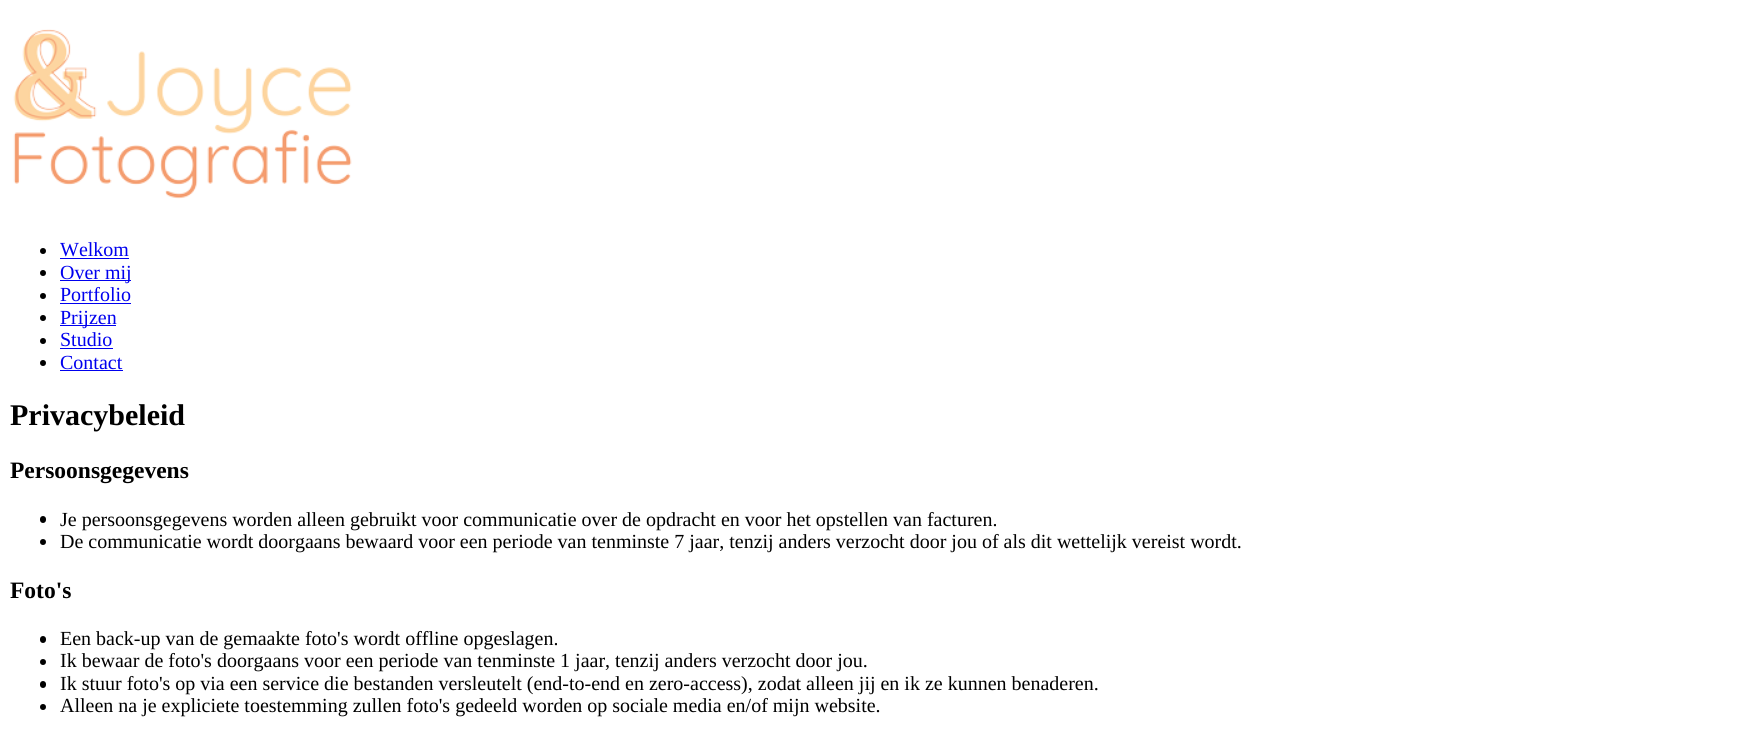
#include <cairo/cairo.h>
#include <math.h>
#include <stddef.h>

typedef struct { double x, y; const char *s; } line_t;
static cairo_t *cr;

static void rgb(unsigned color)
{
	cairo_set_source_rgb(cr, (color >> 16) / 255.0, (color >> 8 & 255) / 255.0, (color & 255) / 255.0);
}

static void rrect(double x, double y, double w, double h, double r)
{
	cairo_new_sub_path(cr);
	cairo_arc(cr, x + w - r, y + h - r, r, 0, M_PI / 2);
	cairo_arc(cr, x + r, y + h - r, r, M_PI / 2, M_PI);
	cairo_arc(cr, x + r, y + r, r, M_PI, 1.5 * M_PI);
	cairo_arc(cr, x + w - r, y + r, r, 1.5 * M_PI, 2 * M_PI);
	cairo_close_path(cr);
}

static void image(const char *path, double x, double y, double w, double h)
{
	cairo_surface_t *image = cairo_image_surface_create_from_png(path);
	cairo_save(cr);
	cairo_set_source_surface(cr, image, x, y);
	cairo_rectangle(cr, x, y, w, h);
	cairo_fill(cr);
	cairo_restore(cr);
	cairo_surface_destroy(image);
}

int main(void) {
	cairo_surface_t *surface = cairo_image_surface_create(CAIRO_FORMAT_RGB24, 1754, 743);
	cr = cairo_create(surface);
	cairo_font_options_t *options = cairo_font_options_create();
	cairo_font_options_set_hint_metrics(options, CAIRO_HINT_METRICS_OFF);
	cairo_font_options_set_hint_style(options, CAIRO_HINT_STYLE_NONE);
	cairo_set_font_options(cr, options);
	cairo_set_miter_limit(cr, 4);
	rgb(0xffffff);
	cairo_paint(cr);
	image("img/1.png", 13, 29, 339, 170);
	rgb(0x000000);
	cairo_arc(cr, 43, 251, 3, 0, 2 * M_PI);
	cairo_fill(cr);
	rgb(0x0000ee);
	cairo_rectangle(cr, 60, 258, 69, 1);
	cairo_fill(cr);
	rgb(0x000000);
	cairo_arc(cr, 43, 273, 3, 0, 2 * M_PI);
	cairo_fill(cr);
	rgb(0x0000ee);
	cairo_rectangle(cr, 60, 280, 71, 1);
	cairo_fill(cr);
	rgb(0x000000);
	cairo_arc(cr, 43, 296, 3, 0, 2 * M_PI);
	cairo_fill(cr);
	rgb(0x0000ee);
	cairo_rectangle(cr, 60, 303, 71, 1);
	cairo_fill(cr);
	rgb(0x000000);
	cairo_arc(cr, 43, 318, 3, 0, 2 * M_PI);
	cairo_fill(cr);
	rgb(0x0000ee);
	cairo_rectangle(cr, 60, 325, 56, 1);
	cairo_fill(cr);
	rgb(0x000000);
	cairo_arc(cr, 43, 341, 3, 0, 2 * M_PI);
	cairo_fill(cr);
	rgb(0x0000ee);
	cairo_rectangle(cr, 60, 348, 53, 1);
	cairo_fill(cr);
	rgb(0x000000);
	cairo_arc(cr, 43, 363, 3, 0, 2 * M_PI);
	cairo_fill(cr);
	rgb(0x0000ee);
	cairo_rectangle(cr, 60, 370, 63, 1);
	cairo_fill(cr);
	rgb(0x000000);
	rrect(40, 516, 6, 7, 3);
	cairo_fill(cr);
	cairo_arc(cr, 43, 542, 3, 0, 2 * M_PI);
	cairo_fill(cr);
	rrect(40, 636, 6, 7, 3);
	cairo_fill(cr);
	cairo_arc(cr, 43, 662, 3, 0, 2 * M_PI);
	cairo_fill(cr);
	rrect(40, 681, 6, 7, 3);
	cairo_fill(cr);
	cairo_arc(cr, 43, 707, 3, 0, 2 * M_PI);
	cairo_fill(cr);
	cairo_select_font_face(cr, "Liberation Serif", CAIRO_FONT_SLANT_NORMAL, CAIRO_FONT_WEIGHT_NORMAL);
	cairo_set_font_size(cr, 20);
	rgb(0x0000ee);
	{
		static const line_t items[] = {
			{60, 256, "Welkom"},
			{60, 279, "Over mij"},
			{60, 301, "Portfolio"},
			{60, 324, "Prijzen"},
			{60, 346, "Studio"},
			{60, 369, "Contact"},
		};
		for (size_t i = 0; i < sizeof items / sizeof *items; i++) {
			cairo_move_to(cr, items[i].x, items[i].y);
			cairo_show_text(cr, items[i].s);
		}
	}
	cairo_select_font_face(cr, "Liberation Serif", CAIRO_FONT_SLANT_NORMAL, CAIRO_FONT_WEIGHT_BOLD);
	cairo_set_font_size(cr, 30);
	rgb(0x000000);
	cairo_move_to(cr, 10, 425);
	cairo_show_text(cr, "Privacybeleid");
	cairo_set_font_size(cr, 23.5);
	cairo_move_to(cr, 10, 478);
	cairo_show_text(cr, "Persoonsgegevens");
	cairo_select_font_face(cr, "Liberation Serif", CAIRO_FONT_SLANT_NORMAL, CAIRO_FONT_WEIGHT_NORMAL);
	cairo_set_font_size(cr, 20);
	cairo_move_to(cr, 60, 526);
	cairo_show_text(cr, "Je persoonsgegevens worden alleen gebruikt voor communicatie over de opdracht en voor het opstellen van facturen.");
	cairo_move_to(cr, 60, 548);
	cairo_show_text(cr, "De communicatie wordt doorgaans bewaard voor een periode van tenminste 7 jaar, tenzij anders verzocht door jou of als dit wettelijk vereist wordt.");
	cairo_select_font_face(cr, "Liberation Serif", CAIRO_FONT_SLANT_NORMAL, CAIRO_FONT_WEIGHT_BOLD);
	cairo_set_font_size(cr, 23.5);
	cairo_move_to(cr, 10, 598);
	cairo_show_text(cr, "Foto's");
	cairo_select_font_face(cr, "Liberation Serif", CAIRO_FONT_SLANT_NORMAL, CAIRO_FONT_WEIGHT_NORMAL);
	cairo_set_font_size(cr, 20);
	{
		static const line_t items[] = {
			{60, 645, "Een back-up van de gemaakte foto's wordt offline opgeslagen."},
			{60, 667, "Ik bewaar de foto's doorgaans voor een periode van tenminste 1 jaar, tenzij anders verzocht door jou."},
			{60, 690, "Ik stuur foto's op via een service die bestanden versleutelt (end-to-end en zero-access), zodat alleen jij en ik ze kunnen benaderen."},
			{60, 712, "Alleen na je expliciete toestemming zullen foto's gedeeld worden op sociale media en/of mijn website."},
		};
		for (size_t i = 0; i < sizeof items / sizeof *items; i++) {
			cairo_move_to(cr, items[i].x, items[i].y);
			cairo_show_text(cr, items[i].s);
		}
	}
	cairo_surface_write_to_png(surface, "page.png");
	cairo_font_options_destroy(options);
	cairo_destroy(cr);
	cairo_surface_destroy(surface);
	return 0;
}
